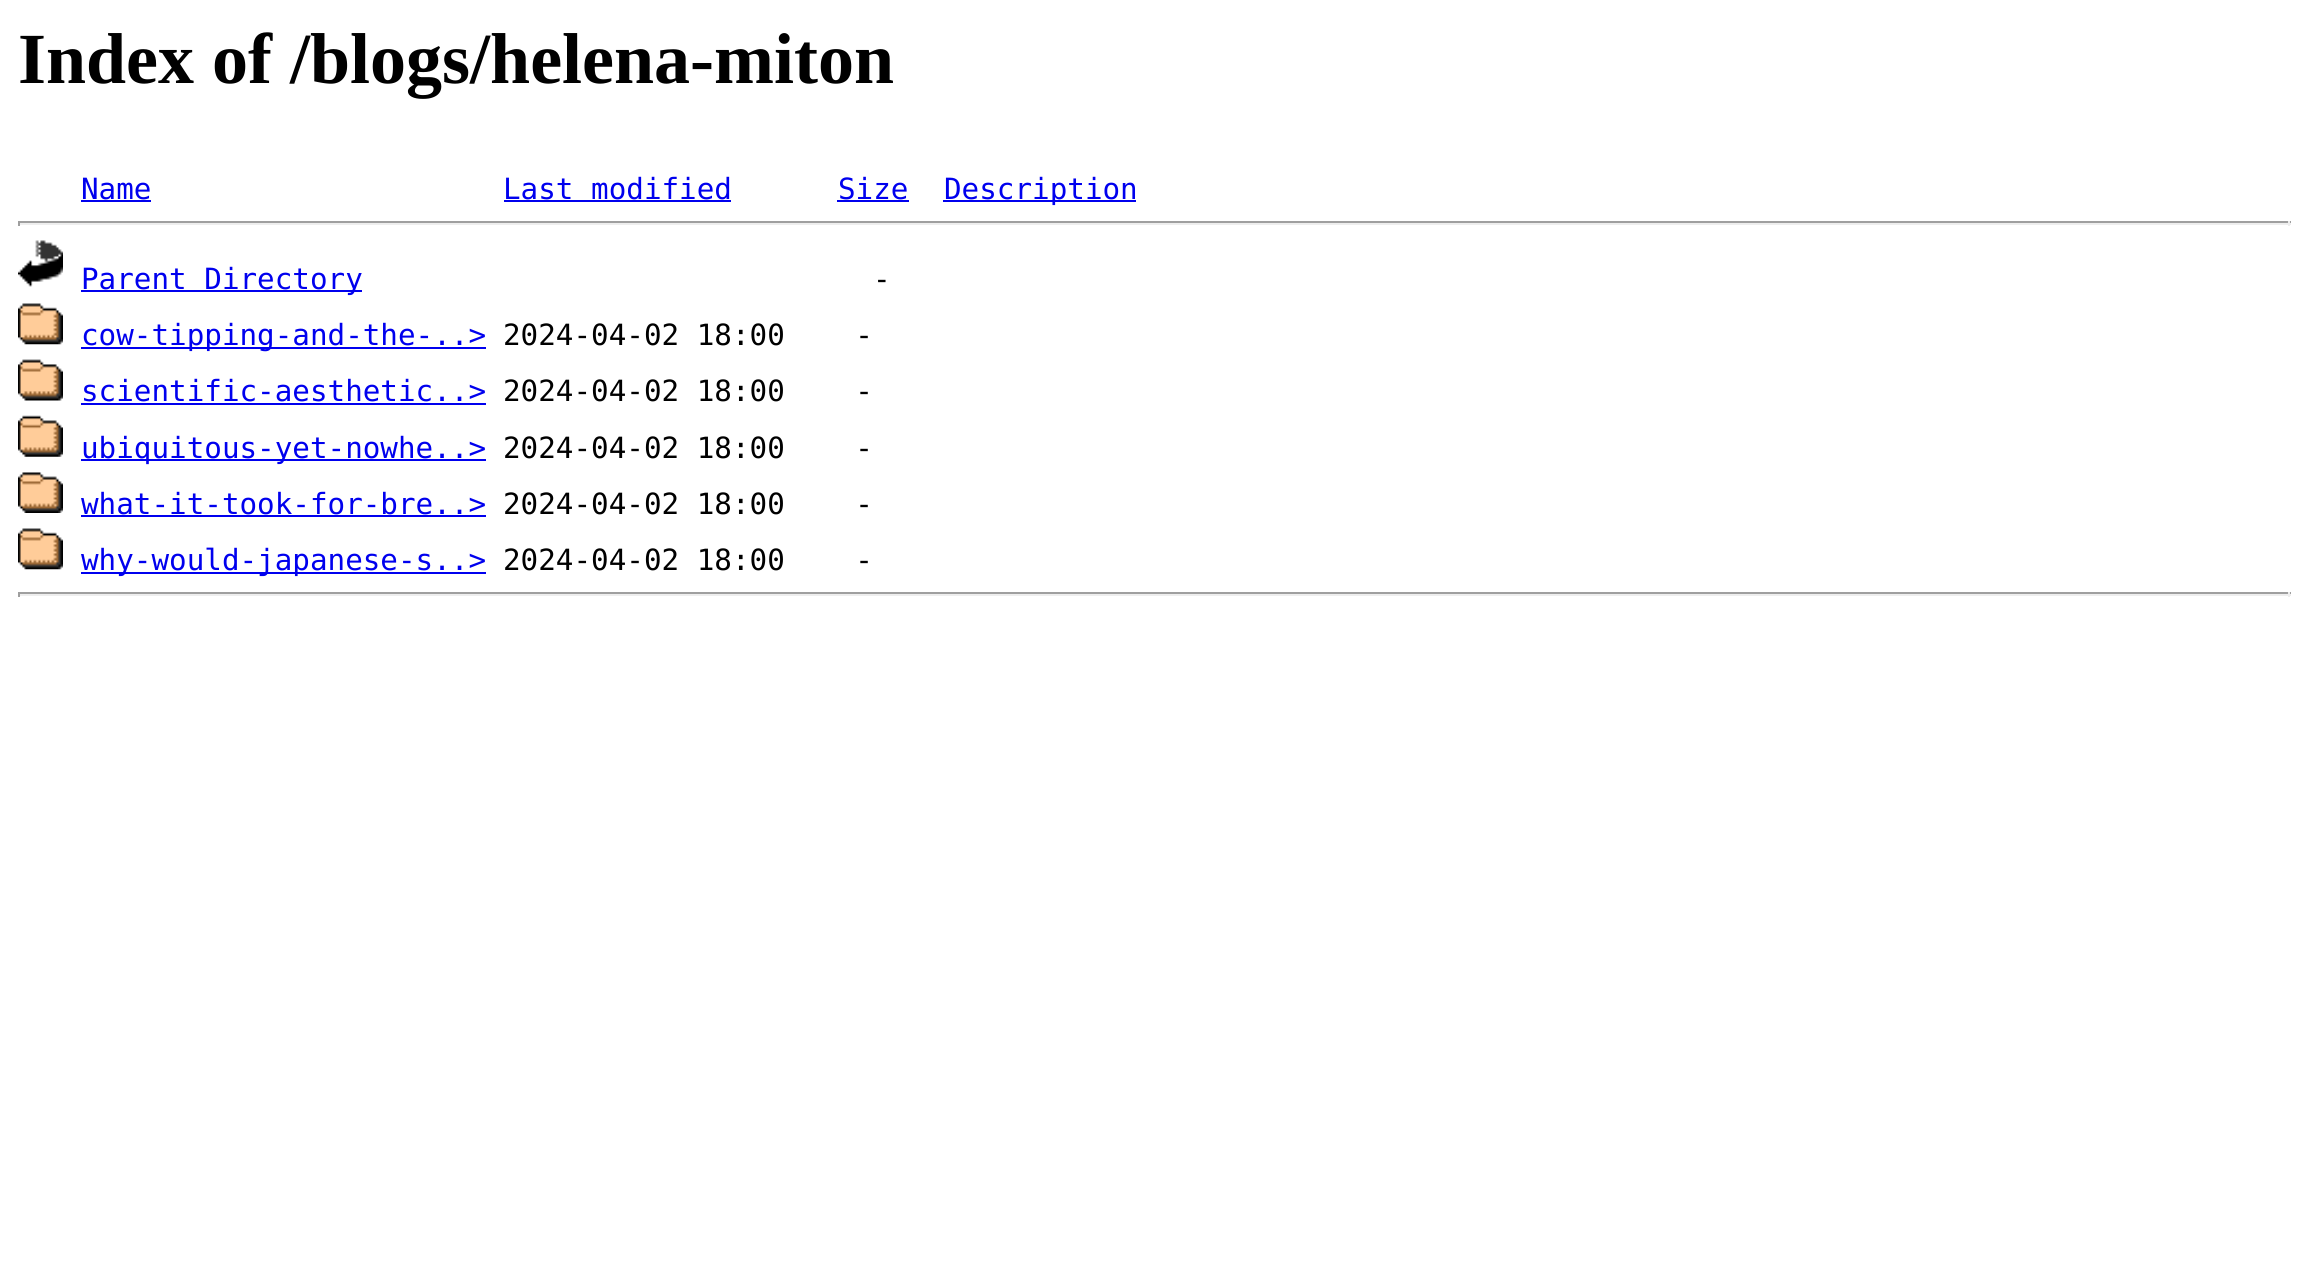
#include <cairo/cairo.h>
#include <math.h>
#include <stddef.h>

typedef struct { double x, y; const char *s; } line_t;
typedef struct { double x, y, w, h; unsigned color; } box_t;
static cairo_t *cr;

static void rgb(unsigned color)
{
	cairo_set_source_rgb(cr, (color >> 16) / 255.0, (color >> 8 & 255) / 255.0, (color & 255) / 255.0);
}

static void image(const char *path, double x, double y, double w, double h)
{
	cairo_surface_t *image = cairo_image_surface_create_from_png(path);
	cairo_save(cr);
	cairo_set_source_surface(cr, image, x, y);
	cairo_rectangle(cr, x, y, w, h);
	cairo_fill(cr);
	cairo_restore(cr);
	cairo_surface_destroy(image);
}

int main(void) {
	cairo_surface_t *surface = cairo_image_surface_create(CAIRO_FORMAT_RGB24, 2308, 1280);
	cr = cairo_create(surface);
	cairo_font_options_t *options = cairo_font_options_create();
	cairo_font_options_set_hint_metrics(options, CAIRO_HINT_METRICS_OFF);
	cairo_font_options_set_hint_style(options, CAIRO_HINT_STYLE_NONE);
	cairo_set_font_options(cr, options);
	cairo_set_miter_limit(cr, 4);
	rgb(0xffffff);
	cairo_paint(cr);
	{
		static const box_t items[] = {
			{81, 200, 70, 2, 0x0000ee},
			{504, 200, 227, 2, 0x0000ee},
			{837, 200, 72, 2, 0x0000ee},
			{943, 200, 193, 2, 0x0000ee},
			{18, 221, 2273, 2, 0x9f9f9f},
			{2288, 221, 2, 5, 0xeeeeee},
			{18, 223, 2273, 2, 0xeeeeee},
			{18, 221, 2, 5, 0x9f9f9f},
		};
		for (size_t i = 0; i < sizeof items / sizeof *items; i++) {
			rgb(items[i].color);
			cairo_rectangle(cr, items[i].x, items[i].y, items[i].w, items[i].h);
			cairo_fill(cr);
		}
	}
	image("img/1.png", 18, 240, 45, 47);
	rgb(0x0000ee);
	cairo_rectangle(cr, 81, 290, 281, 2);
	cairo_fill(cr);
	image("img/2.png", 18, 303, 45, 42);
	cairo_rectangle(cr, 81, 347, 405, 2);
	cairo_fill(cr);
	image("img/3.png", 18, 359, 45, 42);
	cairo_rectangle(cr, 81, 403, 405, 2);
	cairo_fill(cr);
	image("img/4.png", 18, 415, 45, 42);
	cairo_rectangle(cr, 81, 459, 405, 2);
	cairo_fill(cr);
	image("img/5.png", 18, 472, 45, 41);
	cairo_rectangle(cr, 81, 515, 405, 2);
	cairo_fill(cr);
	image("img/2.png", 18, 528, 45, 42);
	{
		static const box_t items[] = {
			{81, 572, 405, 2, 0x0000ee},
			{18, 592, 2273, 2, 0x9f9f9f},
			{2288, 592, 2, 5, 0xeeeeee},
			{18, 594, 2273, 2, 0xeeeeee},
			{18, 592, 2, 5, 0x9f9f9f},
		};
		for (size_t i = 0; i < sizeof items / sizeof *items; i++) {
			rgb(items[i].color);
			cairo_rectangle(cr, items[i].x, items[i].y, items[i].w, items[i].h);
			cairo_fill(cr);
		}
	}
	cairo_select_font_face(cr, "Liberation Serif", CAIRO_FONT_SLANT_NORMAL, CAIRO_FONT_WEIGHT_BOLD);
	cairo_set_font_size(cr, 72);
	rgb(0x000000);
	cairo_move_to(cr, 18, 83);
	cairo_show_text(cr, "Index of /blogs/helena-miton");
	cairo_select_font_face(cr, "DejaVu Sans Mono", CAIRO_FONT_SLANT_NORMAL, CAIRO_FONT_WEIGHT_NORMAL);
	cairo_set_font_size(cr, 29.25);
	rgb(0x0000ee);
	{
		static const line_t items[] = {
			{81, 199, "Name"},
			{503, 199, "Last modified"},
			{838, 199, "Size"},
			{944, 199, "Description"},
			{81, 289, "Parent Directory"},
		};
		for (size_t i = 0; i < sizeof items / sizeof *items; i++) {
			cairo_move_to(cr, items[i].x, items[i].y);
			cairo_show_text(cr, items[i].s);
		}
	}
	rgb(0x000000);
	cairo_move_to(cr, 873, 289);
	cairo_show_text(cr, "-");
	rgb(0x0000ee);
	cairo_move_to(cr, 81, 345);
	cairo_show_text(cr, "cow-tipping-and-the-..>");
	rgb(0x000000);
	cairo_move_to(cr, 503, 345);
	cairo_show_text(cr, "2024-04-02 18:00    -");
	rgb(0x0000ee);
	cairo_move_to(cr, 81, 401);
	cairo_show_text(cr, "scientific-aesthetic..>");
	rgb(0x000000);
	cairo_move_to(cr, 503, 401);
	cairo_show_text(cr, "2024-04-02 18:00    -");
	rgb(0x0000ee);
	cairo_move_to(cr, 81, 458);
	cairo_show_text(cr, "ubiquitous-yet-nowhe..>");
	rgb(0x000000);
	cairo_move_to(cr, 503, 458);
	cairo_show_text(cr, "2024-04-02 18:00    -");
	rgb(0x0000ee);
	cairo_move_to(cr, 81, 514);
	cairo_show_text(cr, "what-it-took-for-bre..>");
	rgb(0x000000);
	cairo_move_to(cr, 503, 514);
	cairo_show_text(cr, "2024-04-02 18:00    -");
	rgb(0x0000ee);
	cairo_move_to(cr, 81, 570);
	cairo_show_text(cr, "why-would-japanese-s..>");
	rgb(0x000000);
	cairo_move_to(cr, 503, 570);
	cairo_show_text(cr, "2024-04-02 18:00    -");
	cairo_surface_write_to_png(surface, "page.png");
	cairo_font_options_destroy(options);
	cairo_destroy(cr);
	cairo_surface_destroy(surface);
	return 0;
}
